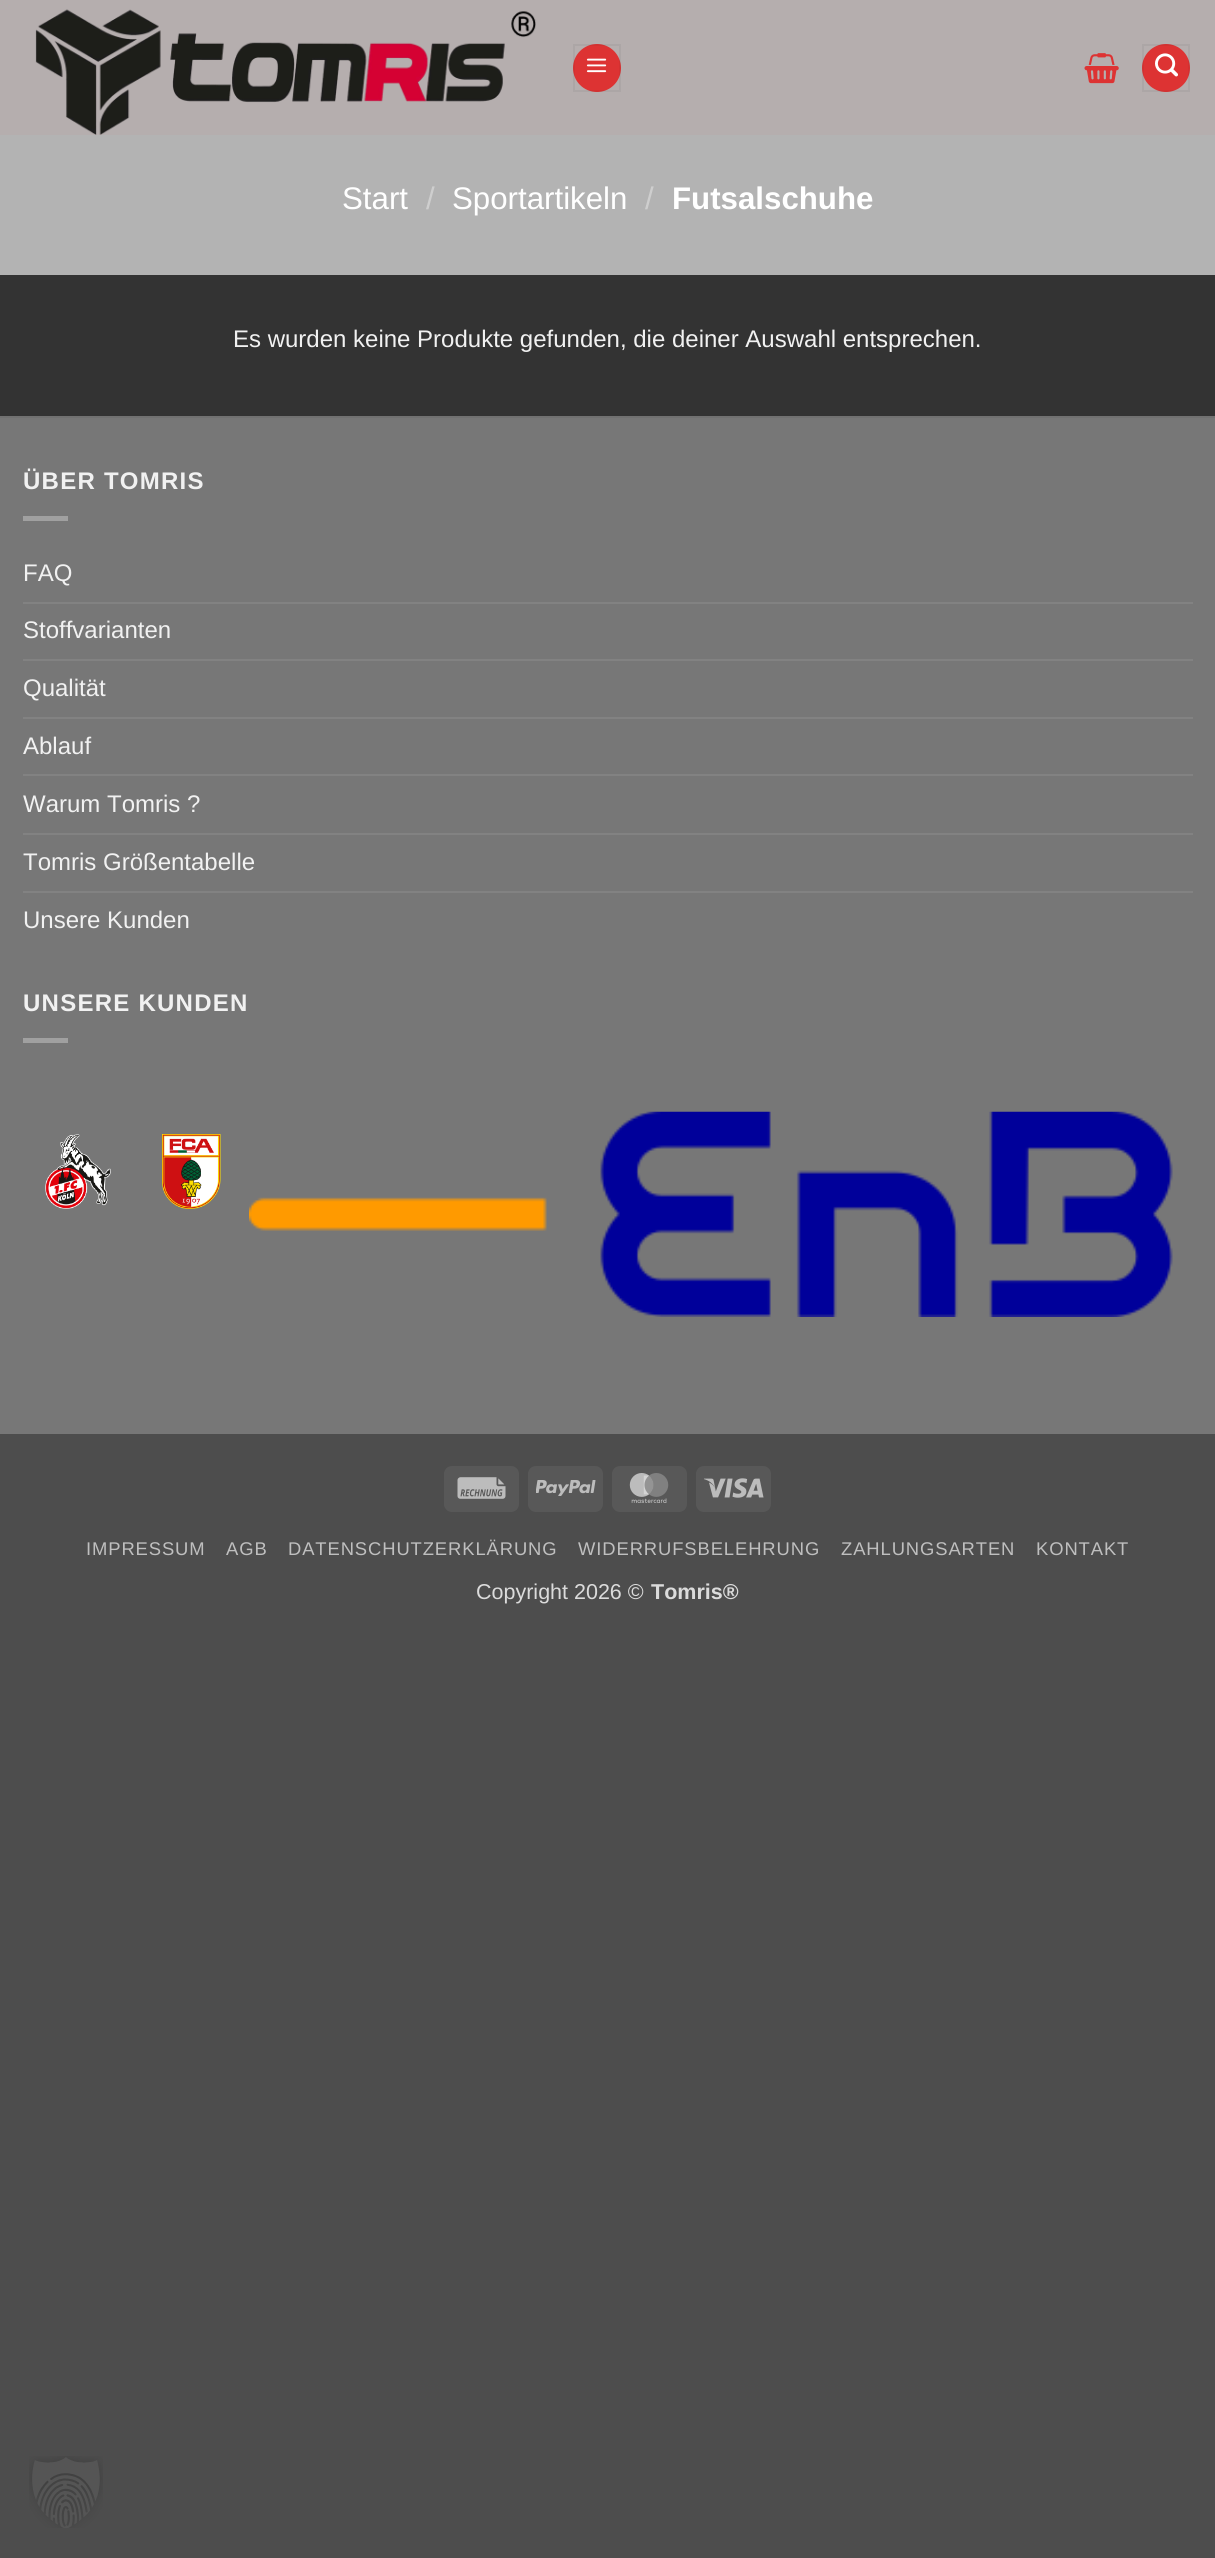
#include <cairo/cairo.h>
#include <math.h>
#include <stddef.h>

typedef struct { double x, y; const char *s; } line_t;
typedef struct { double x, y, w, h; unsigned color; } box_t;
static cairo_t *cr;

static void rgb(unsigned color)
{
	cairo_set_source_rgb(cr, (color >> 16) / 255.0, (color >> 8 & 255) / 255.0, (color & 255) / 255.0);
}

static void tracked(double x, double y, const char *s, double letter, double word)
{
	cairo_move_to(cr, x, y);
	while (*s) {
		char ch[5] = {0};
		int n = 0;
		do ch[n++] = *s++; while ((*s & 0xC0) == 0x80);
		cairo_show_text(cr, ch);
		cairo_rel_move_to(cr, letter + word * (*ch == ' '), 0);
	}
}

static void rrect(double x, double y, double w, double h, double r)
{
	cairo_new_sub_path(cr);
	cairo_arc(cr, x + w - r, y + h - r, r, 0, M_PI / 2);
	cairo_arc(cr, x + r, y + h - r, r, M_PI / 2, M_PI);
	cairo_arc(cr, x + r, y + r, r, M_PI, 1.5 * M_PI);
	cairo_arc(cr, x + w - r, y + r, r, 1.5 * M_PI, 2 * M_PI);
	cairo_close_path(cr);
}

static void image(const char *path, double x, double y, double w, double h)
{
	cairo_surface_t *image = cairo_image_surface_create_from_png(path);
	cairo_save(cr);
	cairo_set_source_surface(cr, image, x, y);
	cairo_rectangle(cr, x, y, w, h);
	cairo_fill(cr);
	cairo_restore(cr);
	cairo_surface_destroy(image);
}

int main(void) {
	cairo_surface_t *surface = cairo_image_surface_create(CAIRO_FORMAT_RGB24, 1215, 2558);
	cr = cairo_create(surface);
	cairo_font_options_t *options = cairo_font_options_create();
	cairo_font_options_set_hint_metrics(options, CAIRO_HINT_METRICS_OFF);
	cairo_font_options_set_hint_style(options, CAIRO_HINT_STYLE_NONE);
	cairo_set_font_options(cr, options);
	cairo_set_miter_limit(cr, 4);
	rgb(0x4d4d4d);
	cairo_paint(cr);
	rgb(0xb5aeae);
	cairo_rectangle(cr, 0, 0, 1215, 135);
	cairo_fill(cr);
	image("img/1.png", 35, 9, 501, 126);
	rgb(0xdd3333);
	cairo_arc(cr, 597, 68, 24, 0, 2 * M_PI);
	cairo_fill(cr);
	cairo_rectangle(cr, 574, 45, 46, 46);
	cairo_set_source_rgba(cr, 0, 0, 0, 0.05);
	cairo_stroke(cr);
	image("img/2.png", 586, 58, 21, 15);
	image("img/3.png", 1084, 53, 35, 31);
	rgb(0xdd3333);
	cairo_arc(cr, 1166, 68, 24, 0, 2 * M_PI);
	cairo_fill(cr);
	cairo_rectangle(cr, 1143, 45, 46, 46);
	cairo_set_source_rgba(cr, 0, 0, 0, 0.05);
	cairo_stroke(cr);
	image("img/4.png", 1155, 53, 23, 24);
	{
		static const box_t items[] = {
			{0, 135, 1215, 140, 0xb3b3b3},
			{0, 275, 1215, 141, 0x333333},
			{0, 418, 1215, 1016, 0x777777},
			{0, 416, 1215, 2, 0x717171},
			{23, 516, 45, 5, 0xa0a0a0},
			{23, 602, 1170, 2, 0x828282},
			{23, 659, 1170, 2, 0x828282},
			{23, 717, 1170, 2, 0x828282},
			{23, 774, 1170, 2, 0x828282},
			{23, 833, 1170, 2, 0x828282},
			{23, 891, 1170, 2, 0x828282},
			{23, 1038, 45, 5, 0xa0a0a0},
		};
		for (size_t i = 0; i < sizeof items / sizeof *items; i++) {
			rgb(items[i].color);
			cairo_rectangle(cr, items[i].x, items[i].y, items[i].w, items[i].h);
			cairo_fill(cr);
		}
	}
	image("img/5.png", 45, 1134, 66, 75);
	image("img/6.png", 162, 1134, 59, 75);
	image("img/7.png", 249, 1111, 924, 206);
	rgb(0x585858);
	rrect(444, 1466, 75, 46, 8);
	cairo_fill(cr);
	image("img/8.png", 457, 1477, 49, 22);
	rrect(528, 1466, 75, 46, 8);
	cairo_fill(cr);
	image("img/9.png", 536, 1480, 60, 16);
	rrect(612, 1466, 75, 46, 8);
	cairo_fill(cr);
	image("img/10.png", 629, 1473, 40, 30);
	rrect(696, 1466, 75, 46, 8);
	cairo_fill(cr);
	image("img/11.png", 704, 1478, 60, 20);
	image("img/12.png", 29, 2456, 74, 72);
	cairo_select_font_face(cr, "Liberation Sans", CAIRO_FONT_SLANT_NORMAL, CAIRO_FONT_WEIGHT_NORMAL);
	cairo_set_font_size(cr, 31.25);
	rgb(0xffffff);
	cairo_move_to(cr, 342, 209);
	cairo_show_text(cr, "Start");
	rgb(0xcecece);
	cairo_move_to(cr, 426, 209);
	cairo_show_text(cr, "/");
	rgb(0xffffff);
	cairo_move_to(cr, 452, 209);
	cairo_show_text(cr, "Sportartikeln");
	rgb(0xcecece);
	cairo_move_to(cr, 645, 209);
	cairo_show_text(cr, "/");
	cairo_select_font_face(cr, "Liberation Sans", CAIRO_FONT_SLANT_NORMAL, CAIRO_FONT_WEIGHT_BOLD);
	rgb(0xffffff);
	cairo_move_to(cr, 672, 209);
	cairo_show_text(cr, "Futsalschuhe");
	cairo_select_font_face(cr, "Liberation Sans", CAIRO_FONT_SLANT_NORMAL, CAIRO_FONT_WEIGHT_NORMAL);
	cairo_set_font_size(cr, 24);
	rgb(0xf1f1f1);
	cairo_move_to(cr, 233, 347);
	cairo_show_text(cr, "Es wurden keine Produkte gefunden, die deiner Auswahl entsprechen.");
	cairo_select_font_face(cr, "Liberation Sans", CAIRO_FONT_SLANT_NORMAL, CAIRO_FONT_WEIGHT_BOLD);
	tracked(23, 489, "ÜBER TOMRIS", 1.25, 0);
	cairo_select_font_face(cr, "Liberation Sans", CAIRO_FONT_SLANT_NORMAL, CAIRO_FONT_WEIGHT_NORMAL);
	{
		static const line_t items[] = {
			{23, 581, "FAQ"},
			{23, 638, "Stoffvarianten"},
			{23, 696, "Qualität"},
			{23, 754, "Ablauf"},
			{23, 812, "Warum Tomris ?"},
			{23, 870, "Tomris Größentabelle"},
			{23, 928, "Unsere Kunden"},
		};
		for (size_t i = 0; i < sizeof items / sizeof *items; i++) {
			cairo_move_to(cr, items[i].x, items[i].y);
			cairo_show_text(cr, items[i].s);
		}
	}
	cairo_select_font_face(cr, "Liberation Sans", CAIRO_FONT_SLANT_NORMAL, CAIRO_FONT_WEIGHT_BOLD);
	tracked(23, 1011, "UNSERE KUNDEN", 1.25, 0);
	cairo_select_font_face(cr, "Liberation Sans", CAIRO_FONT_SLANT_NORMAL, CAIRO_FONT_WEIGHT_NORMAL);
	cairo_set_font_size(cr, 18.4);
	rgb(0xbfbfbf);
	{
		static const line_t items[] = {
			{86, 1555, "IMPRESSUM"},
			{226, 1555, "AGB"},
			{288, 1555, "DATENSCHUTZERKLÄRUNG"},
			{578, 1555, "WIDERRUFSBELEHRUNG"},
			{841, 1555, "ZAHLUNGSARTEN"},
			{1036, 1555, "KONTAKT"},
		};
		for (size_t i = 0; i < sizeof items / sizeof *items; i++) {
			tracked(items[i].x, items[i].y, items[i].s, 0.9, 0);
		}
	}
	cairo_set_font_size(cr, 21.5);
	rgb(0xdbdbdb);
	cairo_move_to(cr, 476, 1599);
	cairo_show_text(cr, "Copyright 2026 ©");
	cairo_select_font_face(cr, "Liberation Sans", CAIRO_FONT_SLANT_NORMAL, CAIRO_FONT_WEIGHT_BOLD);
	cairo_move_to(cr, 651, 1599);
	cairo_show_text(cr, "Tomris®");
	cairo_surface_write_to_png(surface, "page.png");
	cairo_font_options_destroy(options);
	cairo_destroy(cr);
	cairo_surface_destroy(surface);
	return 0;
}
